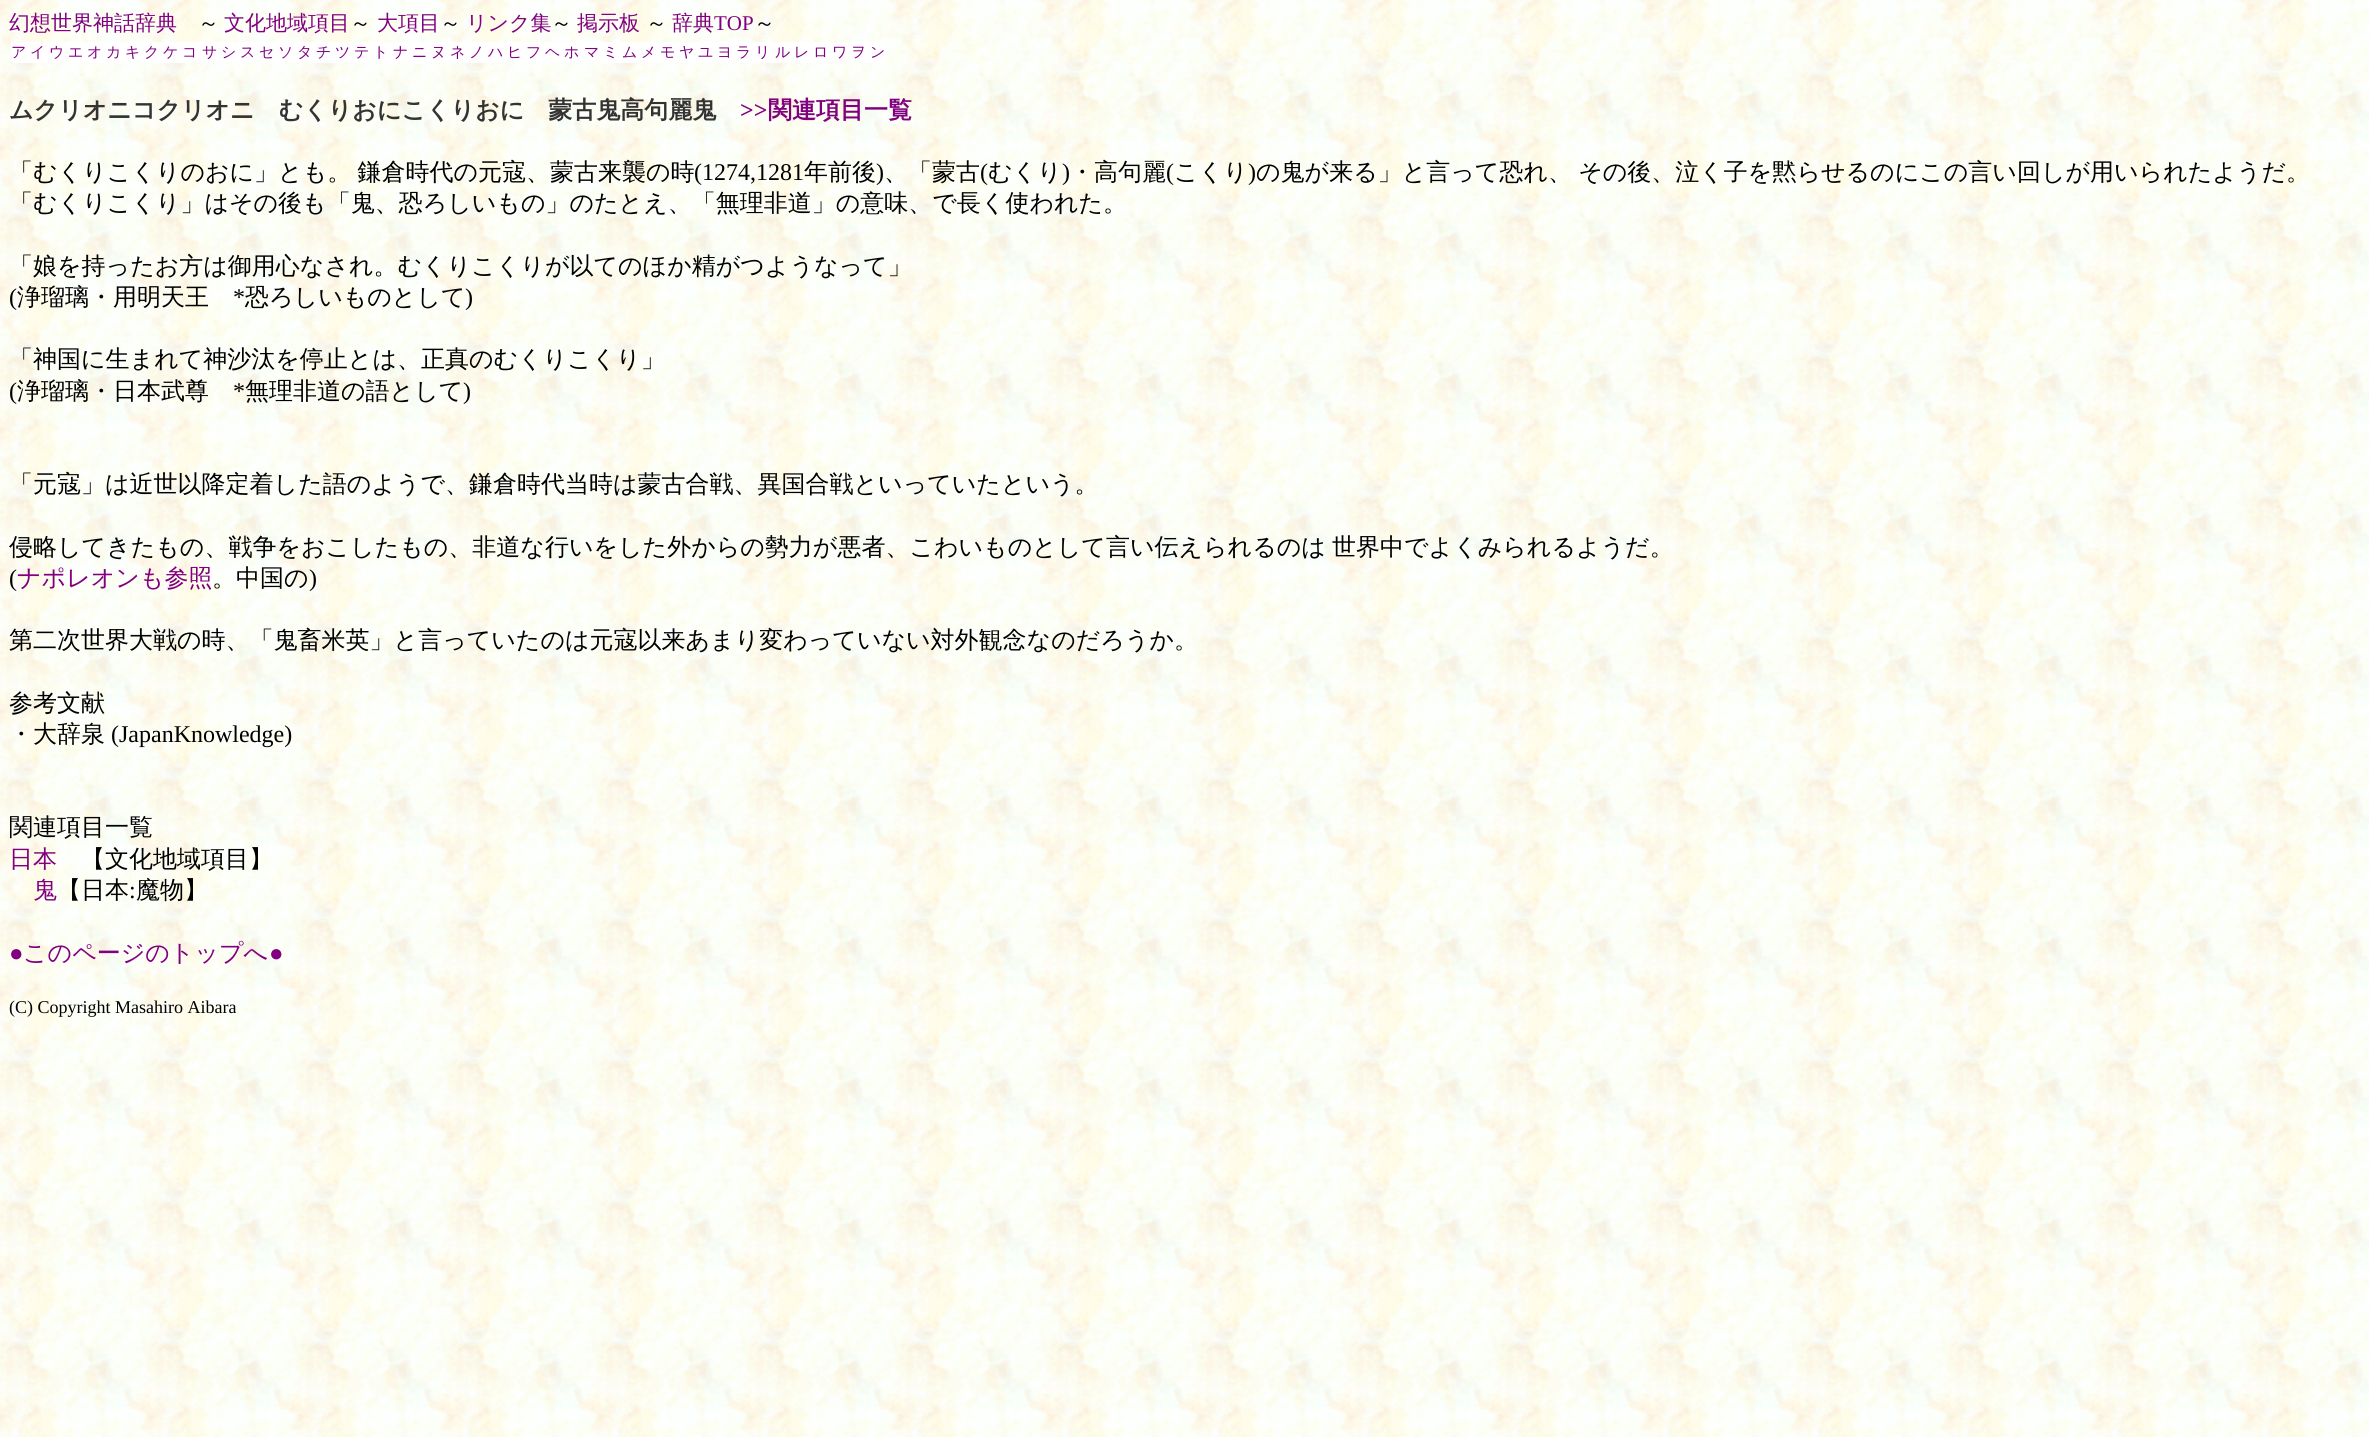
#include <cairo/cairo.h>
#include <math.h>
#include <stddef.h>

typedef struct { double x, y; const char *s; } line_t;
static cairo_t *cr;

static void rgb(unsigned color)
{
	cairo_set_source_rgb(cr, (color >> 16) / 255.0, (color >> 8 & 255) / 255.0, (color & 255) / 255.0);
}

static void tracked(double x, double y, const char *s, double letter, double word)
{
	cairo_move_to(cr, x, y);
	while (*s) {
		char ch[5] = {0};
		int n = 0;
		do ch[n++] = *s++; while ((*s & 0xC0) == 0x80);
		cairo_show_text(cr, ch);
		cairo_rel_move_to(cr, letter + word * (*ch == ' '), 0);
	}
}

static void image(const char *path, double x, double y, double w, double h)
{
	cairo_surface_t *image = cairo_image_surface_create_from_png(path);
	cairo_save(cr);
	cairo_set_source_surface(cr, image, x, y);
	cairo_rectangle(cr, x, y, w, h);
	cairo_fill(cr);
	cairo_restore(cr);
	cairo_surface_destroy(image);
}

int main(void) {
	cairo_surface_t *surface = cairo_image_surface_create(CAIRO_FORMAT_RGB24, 2369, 1437);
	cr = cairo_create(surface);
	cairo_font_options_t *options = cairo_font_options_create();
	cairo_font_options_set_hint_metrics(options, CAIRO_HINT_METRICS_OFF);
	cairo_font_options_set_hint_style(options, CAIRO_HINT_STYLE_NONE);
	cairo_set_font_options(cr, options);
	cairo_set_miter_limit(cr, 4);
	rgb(0xffffff);
	cairo_paint(cr);
	image("img/1.png", 0, 0, 2369, 1437);
	rgb(0xffffff);
	cairo_rectangle(cr, 11, 42, 874, 21);
	cairo_fill(cr);
	cairo_select_font_face(cr, "WenQuanYi Zen Hei Medium", CAIRO_FONT_SLANT_NORMAL, CAIRO_FONT_WEIGHT_NORMAL);
	cairo_set_font_size(cr, 21);
	rgb(0x800080);
	cairo_move_to(cr, 9, 30);
	cairo_show_text(cr, "幻想世界神話辞典");
	rgb(0x000000);
	cairo_move_to(cr, 198, 30);
	cairo_show_text(cr, "～");
	rgb(0x800080);
	cairo_move_to(cr, 224, 30);
	cairo_show_text(cr, "文化地域項目");
	rgb(0x000000);
	cairo_move_to(cr, 350, 30);
	cairo_show_text(cr, "～");
	rgb(0x800080);
	cairo_move_to(cr, 377, 30);
	cairo_show_text(cr, "大項目");
	rgb(0x000000);
	cairo_move_to(cr, 440, 30);
	cairo_show_text(cr, "～");
	rgb(0x800080);
	cairo_move_to(cr, 466, 30);
	cairo_show_text(cr, "リンク集");
	rgb(0x000000);
	cairo_move_to(cr, 551, 30);
	cairo_show_text(cr, "～");
	rgb(0x800080);
	cairo_move_to(cr, 577, 30);
	cairo_show_text(cr, "掲示板");
	rgb(0x000000);
	cairo_move_to(cr, 646, 30);
	cairo_show_text(cr, "～");
	rgb(0x800080);
	cairo_move_to(cr, 672, 30);
	cairo_show_text(cr, "辞典");
	cairo_select_font_face(cr, "Liberation Serif", CAIRO_FONT_SLANT_NORMAL, CAIRO_FONT_WEIGHT_NORMAL);
	cairo_move_to(cr, 714, 30);
	cairo_show_text(cr, "TOP");
	cairo_select_font_face(cr, "WenQuanYi Zen Hei Medium", CAIRO_FONT_SLANT_NORMAL, CAIRO_FONT_WEIGHT_NORMAL);
	rgb(0x000000);
	cairo_move_to(cr, 754, 30);
	cairo_show_text(cr, "～");
	cairo_set_font_size(cr, 15);
	rgb(0x800080);
	{
		static const line_t items[] = {
			{11, 57, "ア"},
			{30, 57, "イ"},
			{49, 57, "ウ"},
			{68, 57, "エ"},
			{87, 57, "オ"},
			{106, 57, "カ"},
			{125, 57, "キ"},
			{144, 57, "ク"},
			{163, 57, "ケ"},
			{182, 57, "コ"},
			{202, 57, "サ"},
			{221, 57, "シ"},
			{240, 57, "ス"},
			{259, 57, "セ"},
			{278, 57, "ソ"},
			{297, 57, "タ"},
			{316, 57, "チ"},
			{335, 57, "ツ"},
			{354, 57, "テ"},
			{373, 57, "ト"},
			{393, 57, "ナ"},
			{412, 57, "ニ"},
			{431, 57, "ヌ"},
			{450, 57, "ネ"},
			{469, 57, "ノ"},
			{488, 57, "ハ"},
			{507, 57, "ヒ"},
			{526, 57, "フ"},
			{545, 57, "ヘ"},
			{564, 57, "ホ"},
			{584, 57, "マ"},
			{603, 57, "ミ"},
			{622, 57, "ム"},
			{641, 57, "メ"},
			{660, 57, "モ"},
			{679, 57, "ヤ"},
			{698, 57, "ユ"},
			{717, 57, "ヨ"},
			{736, 57, "ラ"},
			{755, 57, "リ"},
			{775, 57, "ル"},
			{794, 57, "レ"},
			{813, 57, "ロ"},
			{832, 57, "ワ"},
			{851, 57, "ヲ"},
			{870, 57, "ン"},
		};
		for (size_t i = 0; i < sizeof items / sizeof *items; i++) {
			cairo_move_to(cr, items[i].x, items[i].y);
			cairo_show_text(cr, items[i].s);
		}
	}
	cairo_select_font_face(cr, "WenQuanYi Zen Hei", CAIRO_FONT_SLANT_NORMAL, CAIRO_FONT_WEIGHT_BOLD);
	cairo_set_font_size(cr, 24);
	rgb(0x333333);
	cairo_move_to(cr, 9, 118);
	cairo_show_text(cr, "ムクリオニコクリオニ　むくりおにこくりおに　蒙古鬼高句麗鬼");
	cairo_select_font_face(cr, "Liberation Serif", CAIRO_FONT_SLANT_NORMAL, CAIRO_FONT_WEIGHT_BOLD);
	rgb(0x800080);
	cairo_move_to(cr, 740, 118);
	cairo_show_text(cr, ">>");
	cairo_select_font_face(cr, "WenQuanYi Zen Hei", CAIRO_FONT_SLANT_NORMAL, CAIRO_FONT_WEIGHT_BOLD);
	cairo_move_to(cr, 768, 118);
	cairo_show_text(cr, "関連項目一覧");
	cairo_select_font_face(cr, "WenQuanYi Zen Hei Medium", CAIRO_FONT_SLANT_NORMAL, CAIRO_FONT_WEIGHT_NORMAL);
	rgb(0x000000);
	tracked(9, 180, "「むくりこくりのおに」とも。 鎌倉時代の元寇、蒙古来襲の時", 0, -1);
	cairo_select_font_face(cr, "Liberation Serif", CAIRO_FONT_SLANT_NORMAL, CAIRO_FONT_WEIGHT_NORMAL);
	cairo_move_to(cr, 694, 180);
	cairo_show_text(cr, "(1274,1281");
	cairo_select_font_face(cr, "WenQuanYi Zen Hei Medium", CAIRO_FONT_SLANT_NORMAL, CAIRO_FONT_WEIGHT_NORMAL);
	cairo_move_to(cr, 804, 180);
	cairo_show_text(cr, "年前後");
	cairo_select_font_face(cr, "Liberation Serif", CAIRO_FONT_SLANT_NORMAL, CAIRO_FONT_WEIGHT_NORMAL);
	cairo_move_to(cr, 876, 180);
	cairo_show_text(cr, ")");
	cairo_select_font_face(cr, "WenQuanYi Zen Hei Medium", CAIRO_FONT_SLANT_NORMAL, CAIRO_FONT_WEIGHT_NORMAL);
	cairo_move_to(cr, 884, 180);
	cairo_show_text(cr, "、「蒙古");
	cairo_select_font_face(cr, "Liberation Serif", CAIRO_FONT_SLANT_NORMAL, CAIRO_FONT_WEIGHT_NORMAL);
	cairo_move_to(cr, 980, 180);
	cairo_show_text(cr, "(");
	cairo_select_font_face(cr, "WenQuanYi Zen Hei Medium", CAIRO_FONT_SLANT_NORMAL, CAIRO_FONT_WEIGHT_NORMAL);
	cairo_move_to(cr, 988, 180);
	cairo_show_text(cr, "むくり");
	cairo_select_font_face(cr, "Liberation Serif", CAIRO_FONT_SLANT_NORMAL, CAIRO_FONT_WEIGHT_NORMAL);
	cairo_move_to(cr, 1062, 180);
	cairo_show_text(cr, ")");
	cairo_select_font_face(cr, "WenQuanYi Zen Hei Medium", CAIRO_FONT_SLANT_NORMAL, CAIRO_FONT_WEIGHT_NORMAL);
	cairo_move_to(cr, 1070, 180);
	cairo_show_text(cr, "・高句麗");
	cairo_select_font_face(cr, "Liberation Serif", CAIRO_FONT_SLANT_NORMAL, CAIRO_FONT_WEIGHT_NORMAL);
	cairo_move_to(cr, 1166, 180);
	cairo_show_text(cr, "(");
	cairo_select_font_face(cr, "WenQuanYi Zen Hei Medium", CAIRO_FONT_SLANT_NORMAL, CAIRO_FONT_WEIGHT_NORMAL);
	cairo_move_to(cr, 1174, 180);
	cairo_show_text(cr, "こくり");
	cairo_select_font_face(cr, "Liberation Serif", CAIRO_FONT_SLANT_NORMAL, CAIRO_FONT_WEIGHT_NORMAL);
	cairo_move_to(cr, 1248, 180);
	cairo_show_text(cr, ")");
	cairo_select_font_face(cr, "WenQuanYi Zen Hei Medium", CAIRO_FONT_SLANT_NORMAL, CAIRO_FONT_WEIGHT_NORMAL);
	tracked(1256, 180, "の鬼が来る」と言って恐れ、 その後、泣く子を黙らせるのにこの言い回しが用いられたようだ。", 0, -1);
	cairo_move_to(cr, 9, 211);
	cairo_show_text(cr, "「むくりこくり」はその後も「鬼、恐ろしいもの」のたとえ、「無理非道」の意味、で長く使われた。");
	cairo_move_to(cr, 9, 274);
	cairo_show_text(cr, "「娘を持ったお方は御用心なされ。むくりこくりが以てのほか精がつようなって」");
	cairo_select_font_face(cr, "Liberation Serif", CAIRO_FONT_SLANT_NORMAL, CAIRO_FONT_WEIGHT_NORMAL);
	cairo_move_to(cr, 9, 305);
	cairo_show_text(cr, "(");
	cairo_select_font_face(cr, "WenQuanYi Zen Hei Medium", CAIRO_FONT_SLANT_NORMAL, CAIRO_FONT_WEIGHT_NORMAL);
	cairo_move_to(cr, 17, 305);
	cairo_show_text(cr, "浄瑠璃・用明天王");
	cairo_select_font_face(cr, "Liberation Serif", CAIRO_FONT_SLANT_NORMAL, CAIRO_FONT_WEIGHT_NORMAL);
	cairo_move_to(cr, 233, 305);
	cairo_show_text(cr, "*");
	cairo_select_font_face(cr, "WenQuanYi Zen Hei Medium", CAIRO_FONT_SLANT_NORMAL, CAIRO_FONT_WEIGHT_NORMAL);
	cairo_move_to(cr, 245, 305);
	cairo_show_text(cr, "恐ろしいものとして");
	cairo_select_font_face(cr, "Liberation Serif", CAIRO_FONT_SLANT_NORMAL, CAIRO_FONT_WEIGHT_NORMAL);
	cairo_move_to(cr, 465, 305);
	cairo_show_text(cr, ")");
	cairo_select_font_face(cr, "WenQuanYi Zen Hei Medium", CAIRO_FONT_SLANT_NORMAL, CAIRO_FONT_WEIGHT_NORMAL);
	cairo_move_to(cr, 9, 367);
	cairo_show_text(cr, "「神国に生まれて神沙汰を停止とは、正真のむくりこくり」");
	cairo_select_font_face(cr, "Liberation Serif", CAIRO_FONT_SLANT_NORMAL, CAIRO_FONT_WEIGHT_NORMAL);
	cairo_move_to(cr, 9, 399);
	cairo_show_text(cr, "(");
	cairo_select_font_face(cr, "WenQuanYi Zen Hei Medium", CAIRO_FONT_SLANT_NORMAL, CAIRO_FONT_WEIGHT_NORMAL);
	cairo_move_to(cr, 17, 399);
	cairo_show_text(cr, "浄瑠璃・日本武尊");
	cairo_select_font_face(cr, "Liberation Serif", CAIRO_FONT_SLANT_NORMAL, CAIRO_FONT_WEIGHT_NORMAL);
	cairo_move_to(cr, 233, 399);
	cairo_show_text(cr, "*");
	cairo_select_font_face(cr, "WenQuanYi Zen Hei Medium", CAIRO_FONT_SLANT_NORMAL, CAIRO_FONT_WEIGHT_NORMAL);
	cairo_move_to(cr, 245, 399);
	cairo_show_text(cr, "無理非道の語として");
	cairo_select_font_face(cr, "Liberation Serif", CAIRO_FONT_SLANT_NORMAL, CAIRO_FONT_WEIGHT_NORMAL);
	cairo_move_to(cr, 463, 399);
	cairo_show_text(cr, ")");
	cairo_select_font_face(cr, "WenQuanYi Zen Hei Medium", CAIRO_FONT_SLANT_NORMAL, CAIRO_FONT_WEIGHT_NORMAL);
	cairo_move_to(cr, 9, 492);
	cairo_show_text(cr, "「元寇」は近世以降定着した語のようで、鎌倉時代当時は蒙古合戦、異国合戦といっていたという。");
	tracked(9, 555, "侵略してきたもの、戦争をおこしたもの、非道な行いをした外からの勢力が悪者、こわいものとして言い伝えられるのは 世界中でよくみられるようだ。", 0, -1);
	cairo_select_font_face(cr, "Liberation Serif", CAIRO_FONT_SLANT_NORMAL, CAIRO_FONT_WEIGHT_NORMAL);
	cairo_move_to(cr, 9, 586);
	cairo_show_text(cr, "(");
	cairo_select_font_face(cr, "WenQuanYi Zen Hei Medium", CAIRO_FONT_SLANT_NORMAL, CAIRO_FONT_WEIGHT_NORMAL);
	rgb(0x800080);
	cairo_move_to(cr, 17, 586);
	cairo_show_text(cr, "ナポレオンも参照");
	rgb(0x000000);
	cairo_move_to(cr, 212, 586);
	cairo_show_text(cr, "。中国の");
	cairo_select_font_face(cr, "Liberation Serif", CAIRO_FONT_SLANT_NORMAL, CAIRO_FONT_WEIGHT_NORMAL);
	cairo_move_to(cr, 309, 586);
	cairo_show_text(cr, ")");
	cairo_select_font_face(cr, "WenQuanYi Zen Hei Medium", CAIRO_FONT_SLANT_NORMAL, CAIRO_FONT_WEIGHT_NORMAL);
	{
		static const line_t items[] = {
			{9, 648, "第二次世界大戦の時、「鬼畜米英」と言っていたのは元寇以来あまり変わっていない対外観念なのだろうか。"},
			{9, 711, "参考文献"},
			{9, 742, "・大辞泉"},
		};
		for (size_t i = 0; i < sizeof items / sizeof *items; i++) {
			cairo_move_to(cr, items[i].x, items[i].y);
			cairo_show_text(cr, items[i].s);
		}
	}
	cairo_select_font_face(cr, "Liberation Serif", CAIRO_FONT_SLANT_NORMAL, CAIRO_FONT_WEIGHT_NORMAL);
	cairo_move_to(cr, 111, 742);
	cairo_show_text(cr, "(JapanKnowledge)");
	cairo_select_font_face(cr, "WenQuanYi Zen Hei Medium", CAIRO_FONT_SLANT_NORMAL, CAIRO_FONT_WEIGHT_NORMAL);
	cairo_move_to(cr, 9, 835);
	cairo_show_text(cr, "関連項目一覧");
	rgb(0x800080);
	cairo_move_to(cr, 9, 867);
	cairo_show_text(cr, "日本");
	rgb(0x000000);
	cairo_move_to(cr, 81, 867);
	cairo_show_text(cr, "【文化地域項目】");
	rgb(0x800080);
	cairo_move_to(cr, 33, 898);
	cairo_show_text(cr, "鬼");
	rgb(0x000000);
	cairo_move_to(cr, 57, 898);
	cairo_show_text(cr, "【日本");
	cairo_select_font_face(cr, "Liberation Serif", CAIRO_FONT_SLANT_NORMAL, CAIRO_FONT_WEIGHT_NORMAL);
	cairo_move_to(cr, 129, 898);
	cairo_show_text(cr, ":");
	cairo_select_font_face(cr, "WenQuanYi Zen Hei Medium", CAIRO_FONT_SLANT_NORMAL, CAIRO_FONT_WEIGHT_NORMAL);
	cairo_move_to(cr, 136, 898);
	cairo_show_text(cr, "魔物】");
	cairo_select_font_face(cr, "Liberation Serif", CAIRO_FONT_SLANT_NORMAL, CAIRO_FONT_WEIGHT_NORMAL);
	rgb(0x800080);
	cairo_move_to(cr, 9, 961);
	cairo_show_text(cr, "●");
	cairo_select_font_face(cr, "WenQuanYi Zen Hei Medium", CAIRO_FONT_SLANT_NORMAL, CAIRO_FONT_WEIGHT_NORMAL);
	cairo_move_to(cr, 23, 961);
	cairo_show_text(cr, "このページのトップへ");
	cairo_select_font_face(cr, "Liberation Serif", CAIRO_FONT_SLANT_NORMAL, CAIRO_FONT_WEIGHT_NORMAL);
	cairo_move_to(cr, 269, 961);
	cairo_show_text(cr, "●");
	cairo_set_font_size(cr, 18);
	rgb(0x000000);
	cairo_move_to(cr, 9, 1013);
	cairo_show_text(cr, "(C) Copyright Masahiro Aibara");
	cairo_surface_write_to_png(surface, "page.png");
	cairo_font_options_destroy(options);
	cairo_destroy(cr);
	cairo_surface_destroy(surface);
	return 0;
}
